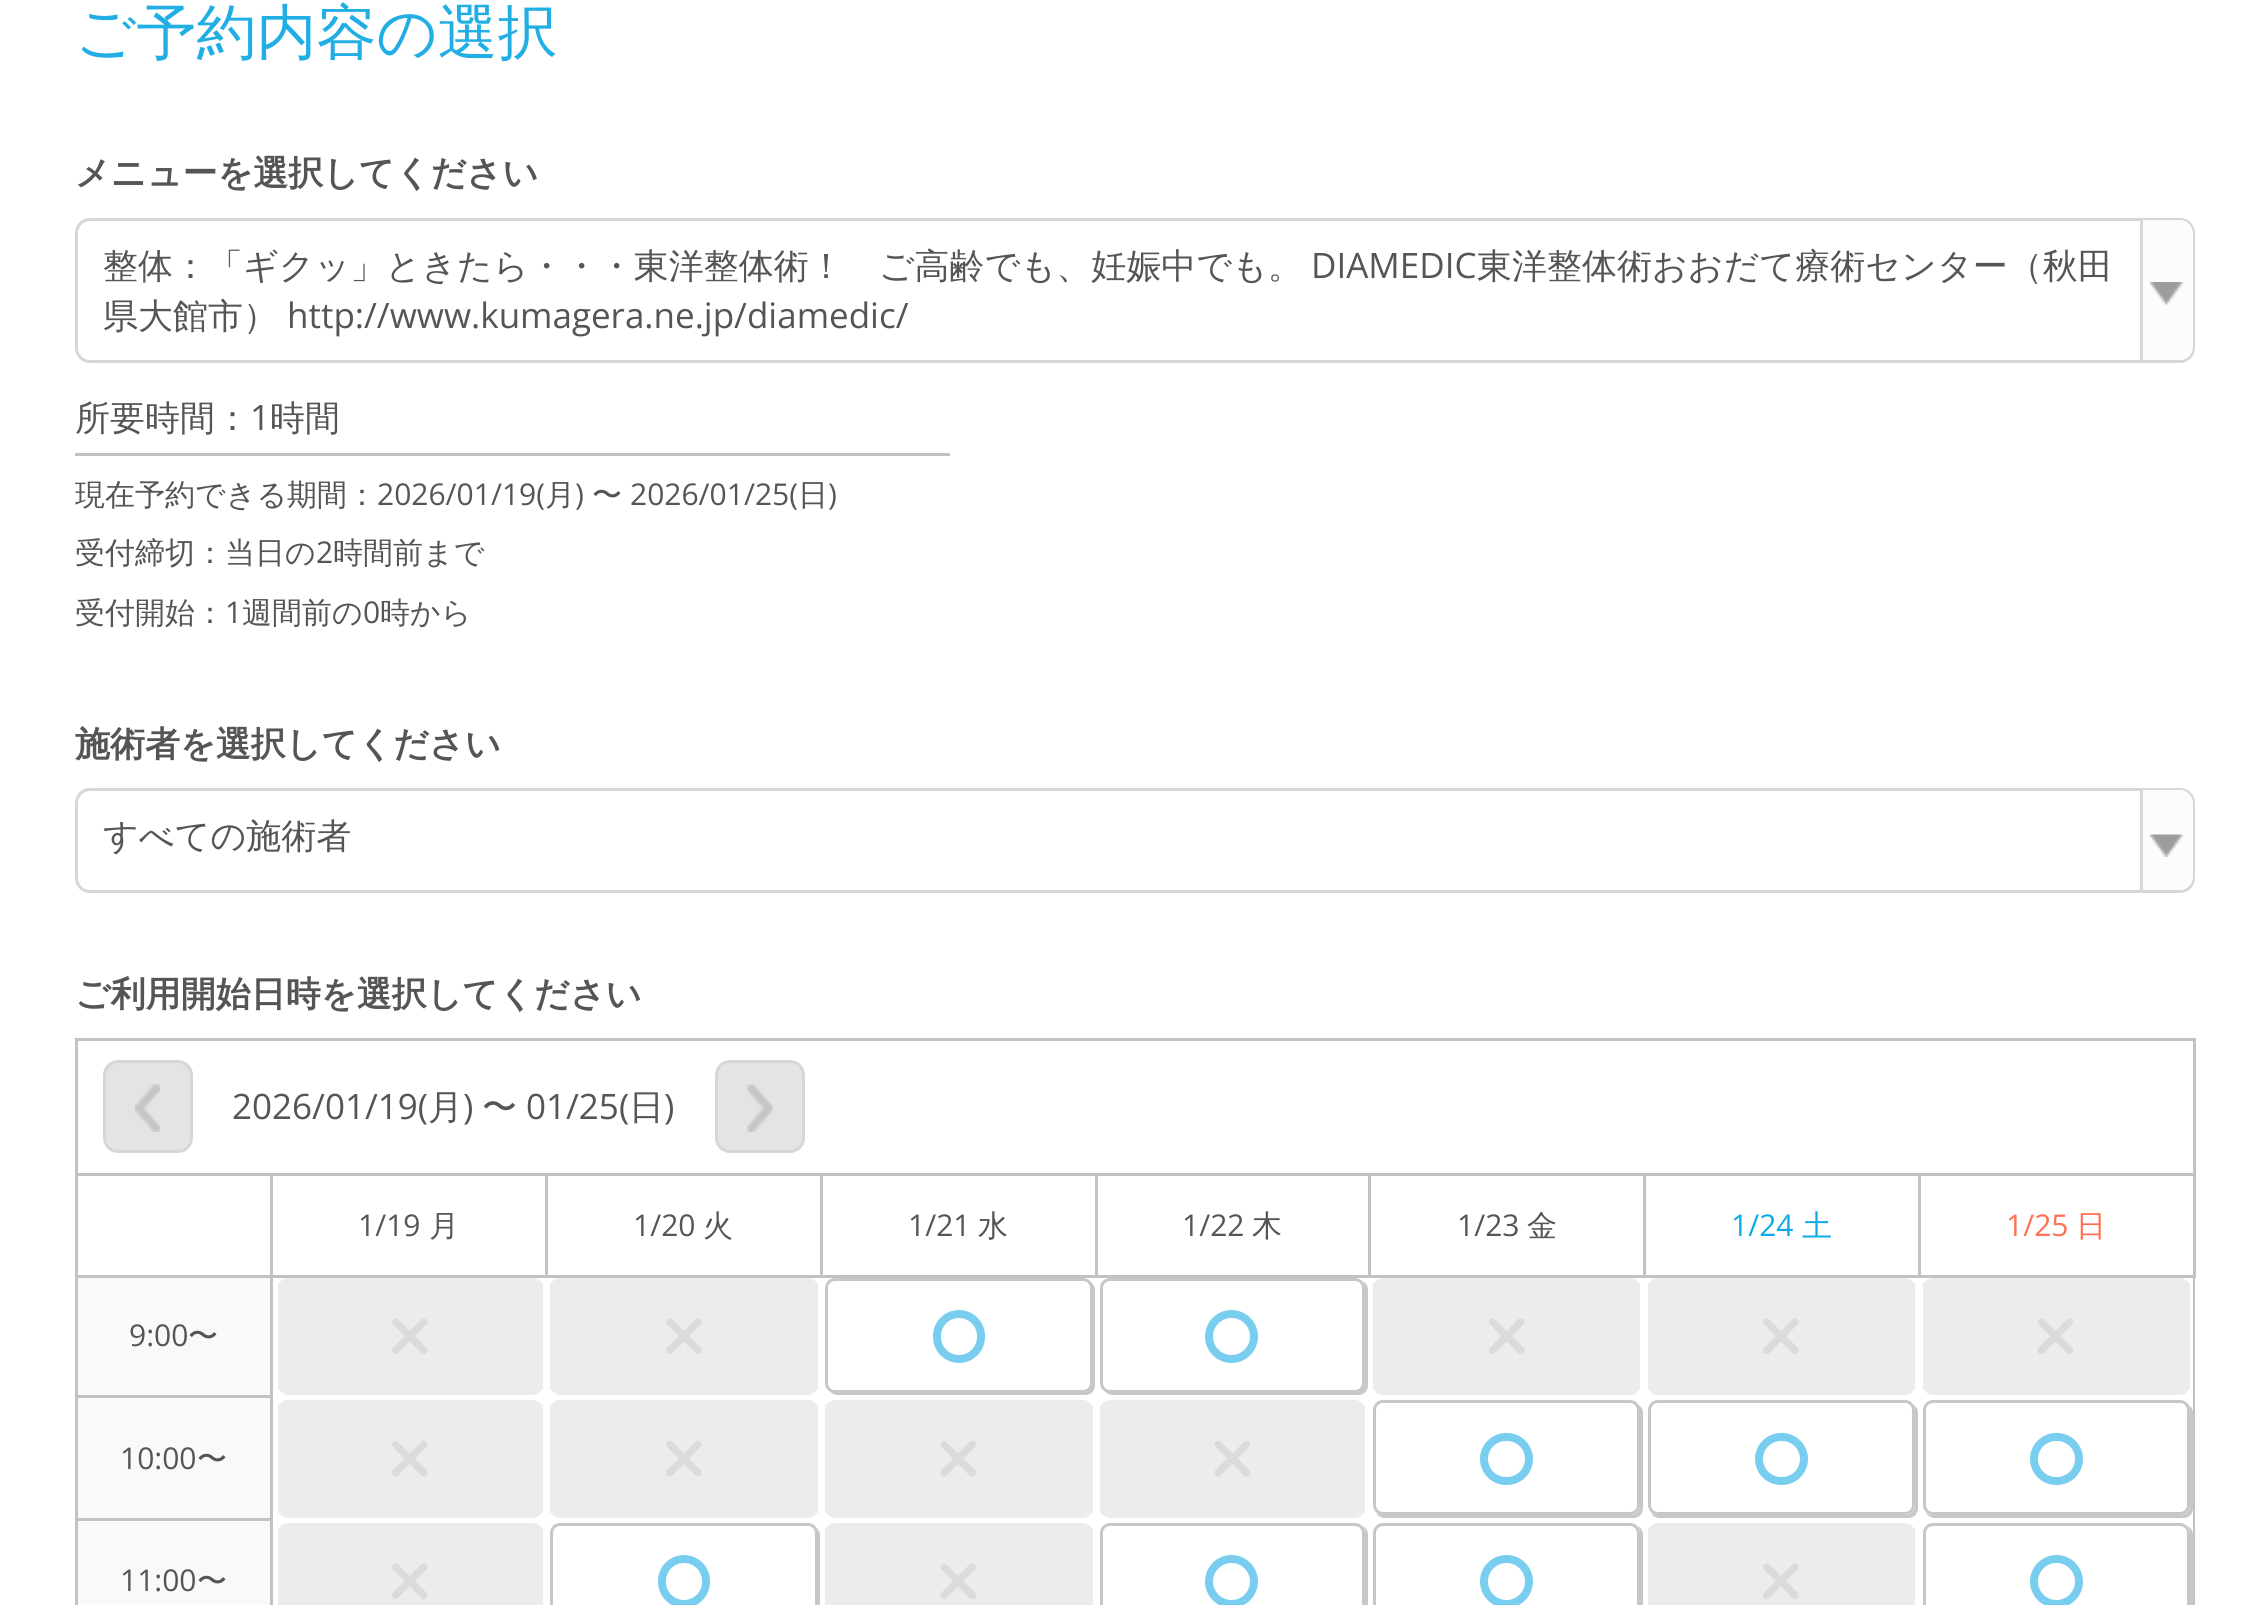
#include <cairo/cairo.h>
#include <math.h>
#include <stddef.h>

typedef struct { double x, y, w, h; unsigned color; } box_t;
static cairo_t *cr;

static void rgb(unsigned color)
{
	cairo_set_source_rgb(cr, (color >> 16) / 255.0, (color >> 8 & 255) / 255.0, (color & 255) / 255.0);
}

static void rrect(double x, double y, double w, double h, double r)
{
	cairo_new_sub_path(cr);
	cairo_arc(cr, x + w - r, y + h - r, r, 0, M_PI / 2);
	cairo_arc(cr, x + r, y + h - r, r, M_PI / 2, M_PI);
	cairo_arc(cr, x + r, y + r, r, M_PI, 1.5 * M_PI);
	cairo_arc(cr, x + w - r, y + r, r, 1.5 * M_PI, 2 * M_PI);
	cairo_close_path(cr);
}

static void image(const char *path, double x, double y, double w, double h)
{
	cairo_surface_t *image = cairo_image_surface_create_from_png(path);
	cairo_save(cr);
	cairo_set_source_surface(cr, image, x, y);
	cairo_rectangle(cr, x, y, w, h);
	cairo_fill(cr);
	cairo_restore(cr);
	cairo_surface_destroy(image);
}

int main(void) {
	cairo_surface_t *surface = cairo_image_surface_create(CAIRO_FORMAT_RGB24, 2268, 1605);
	cr = cairo_create(surface);
	cairo_font_options_t *options = cairo_font_options_create();
	cairo_font_options_set_hint_metrics(options, CAIRO_HINT_METRICS_OFF);
	cairo_font_options_set_hint_style(options, CAIRO_HINT_STYLE_NONE);
	cairo_set_font_options(cr, options);
	cairo_set_miter_limit(cr, 4);
	rgb(0xffffff);
	cairo_paint(cr);
	rrect(76.5, 219.5, 2117, 142, 13.5);
	rgb(0xd7d6d6);
	cairo_set_line_width(cr, 3);
	cairo_stroke(cr);
	rgb(0xfcfcfc);
	cairo_new_path(cr);
	cairo_move_to(cr, 2140, 220);
	cairo_line_to(cr, 2180, 220);
	cairo_curve_to(cr, 2187, 220, 2193, 226, 2193, 233);
	cairo_line_to(cr, 2193, 347);
	cairo_curve_to(cr, 2193, 354, 2187, 360, 2180, 360);
	cairo_line_to(cr, 2140, 360);
	cairo_close_path(cr);
	cairo_fill(cr);
	rgb(0xd7d6d6);
	cairo_rectangle(cr, 2140, 220, 3, 140);
	cairo_fill(cr);
	image("img/1.png", 2150, 282, 33, 23);
	rgb(0xc2c2c2);
	cairo_rectangle(cr, 75, 453, 875, 3);
	cairo_fill(cr);
	rrect(76.5, 789.5, 2117, 102, 13.5);
	rgb(0xd7d6d6);
	cairo_stroke(cr);
	rgb(0xfcfcfc);
	cairo_new_path(cr);
	cairo_move_to(cr, 2140, 790);
	cairo_line_to(cr, 2180, 790);
	cairo_curve_to(cr, 2187, 790, 2193, 796, 2193, 803);
	cairo_line_to(cr, 2193, 877);
	cairo_curve_to(cr, 2193, 884, 2187, 890, 2180, 890);
	cairo_line_to(cr, 2140, 890);
	cairo_close_path(cr);
	cairo_fill(cr);
	rgb(0xd7d6d6);
	cairo_rectangle(cr, 2140, 790, 3, 100);
	cairo_fill(cr);
	image("img/2.png", 2150, 834, 33, 23);
	{
		static const box_t items[] = {
			{75, 1038, 2120, 3, 0xc2c2c2},
			{2193, 1038, 3, 135, 0xc2c2c2},
			{75, 1038, 3, 135, 0xc2c2c2},
		};
		for (size_t i = 0; i < sizeof items / sizeof *items; i++) {
			rgb(items[i].color);
			cairo_rectangle(cr, items[i].x, items[i].y, items[i].w, items[i].h);
			cairo_fill(cr);
		}
	}
	rgb(0xe4e4e4);
	rrect(104.5, 1061.5, 87, 90, 13.5);
	cairo_fill_preserve(cr);
	rgb(0xd7d6d6);
	cairo_stroke(cr);
	image("img/3.png", 135, 1084, 25, 48);
	rgb(0xe4e4e4);
	rrect(716.5, 1061.5, 87, 90, 13.5);
	cairo_fill_preserve(cr);
	rgb(0xd7d6d6);
	cairo_stroke(cr);
	image("img/4.png", 747, 1084, 26, 48);
	cairo_rectangle(cr, 76.5, 1174.5, 195, 102);
	rgb(0xc2c2c2);
	cairo_stroke(cr);
	{
		static const box_t items[] = {
			{273, 1173, 1097, 3, 0xc2c2c2},
			{545, 1173, 3, 105, 0xc2c2c2},
			{273, 1275, 275, 3, 0xc2c2c2},
			{820, 1173, 3, 105, 0xc2c2c2},
			{548, 1275, 275, 3, 0xc2c2c2},
			{1095, 1173, 3, 105, 0xc2c2c2},
			{823, 1275, 275, 3, 0xc2c2c2},
			{1368, 1173, 3, 105, 0xc2c2c2},
			{1098, 1275, 272, 3, 0xc2c2c2},
			{1370, 1173, 275, 3, 0xc2c2c2},
			{1643, 1173, 3, 105, 0xc2c2c2},
			{1370, 1275, 275, 3, 0xc2c2c2},
			{1645, 1173, 275, 3, 0xc2c2c2},
			{1918, 1173, 3, 105, 0xc2c2c2},
			{1645, 1275, 275, 3, 0xc2c2c2},
			{1920, 1173, 275, 3, 0xc2c2c2},
			{2193, 1173, 3, 105, 0xc2c2c2},
			{1920, 1275, 275, 3, 0xc2c2c2},
			{75, 1278, 3, 327, 0xc2c2c2},
			{2193, 1278, 2, 327, 0xc2c2c2},
			{78, 1278, 192, 327, 0xf9f9f9},
			{270, 1278, 3, 327, 0xc2c2c2},
			{78, 1395, 192, 3, 0xc2c2c2},
			{78, 1518, 192, 3, 0xc2c2c2},
		};
		for (size_t i = 0; i < sizeof items / sizeof *items; i++) {
			rgb(items[i].color);
			cairo_rectangle(cr, items[i].x, items[i].y, items[i].w, items[i].h);
			cairo_fill(cr);
		}
	}
	rgb(0xececec);
	rrect(278, 1278, 265, 117, 10);
	cairo_fill(cr);
	cairo_rectangle(cr, 542, 1283, 1, 107);
	cairo_fill(cr);
	cairo_rectangle(cr, 278, 1283, 2, 107);
	cairo_fill(cr);
	rgb(0xdbdbdb);
	cairo_new_path(cr);
	cairo_move_to(cr, 393, 1319.5);
	cairo_curve_to(cr, 394.5, 1318, 396.5, 1318, 398, 1319.5);
	cairo_line_to(cr, 426.5, 1347.5);
	cairo_curve_to(cr, 428, 1349, 428, 1351.5, 426.5, 1353);
	cairo_curve_to(cr, 425, 1354.5, 422.5, 1354.5, 421, 1353);
	cairo_line_to(cr, 393, 1324.5);
	cairo_curve_to(cr, 391.5, 1323, 391.5, 1321, 393, 1319.5);
	cairo_close_path(cr);
	cairo_fill(cr);
	cairo_new_path(cr);
	cairo_move_to(cr, 426.5, 1319.5);
	cairo_curve_to(cr, 428, 1321, 428, 1323, 426.5, 1324.5);
	cairo_line_to(cr, 398, 1353);
	cairo_curve_to(cr, 396.5, 1354.5, 394.5, 1354.5, 393, 1353);
	cairo_curve_to(cr, 391.5, 1351.5, 391.5, 1349, 393, 1347.5);
	cairo_line_to(cr, 421, 1319.5);
	cairo_curve_to(cr, 422.5, 1318, 425, 1318, 426.5, 1319.5);
	cairo_close_path(cr);
	cairo_fill(cr);
	rgb(0xececec);
	rrect(278, 1400, 265, 118, 10);
	cairo_fill(cr);
	cairo_rectangle(cr, 542, 1405, 1, 108);
	cairo_fill(cr);
	cairo_rectangle(cr, 278, 1405, 2, 108);
	cairo_fill(cr);
	rgb(0xdbdbdb);
	cairo_new_path(cr);
	cairo_move_to(cr, 393, 1442);
	cairo_curve_to(cr, 394.5, 1440.5, 396.5, 1440.5, 398, 1442);
	cairo_line_to(cr, 426.5, 1470);
	cairo_curve_to(cr, 428, 1471.5, 428, 1474, 426.5, 1475.5);
	cairo_curve_to(cr, 425, 1477, 422.5, 1477, 421, 1475.5);
	cairo_line_to(cr, 393, 1447);
	cairo_curve_to(cr, 391.5, 1445.5, 391.5, 1443.5, 393, 1442);
	cairo_close_path(cr);
	cairo_fill(cr);
	cairo_new_path(cr);
	cairo_move_to(cr, 426.5, 1442);
	cairo_curve_to(cr, 428, 1443.5, 428, 1445.5, 426.5, 1447);
	cairo_line_to(cr, 398, 1475.5);
	cairo_curve_to(cr, 396.5, 1477, 394.5, 1477, 393, 1475.5);
	cairo_curve_to(cr, 391.5, 1474, 391.5, 1471.5, 393, 1470);
	cairo_line_to(cr, 421, 1442);
	cairo_curve_to(cr, 422.5, 1440.5, 425, 1440.5, 426.5, 1442);
	cairo_close_path(cr);
	cairo_fill(cr);
	rgb(0xececec);
	rrect(278, 1523, 265, 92, 10);
	cairo_fill(cr);
	cairo_rectangle(cr, 542, 1528, 1, 4);
	cairo_fill(cr);
	cairo_rectangle(cr, 278, 1528, 2, 4);
	cairo_fill(cr);
	rgb(0xdbdbdb);
	cairo_new_path(cr);
	cairo_move_to(cr, 393, 1564.5);
	cairo_curve_to(cr, 394.5, 1563, 396.5, 1563, 398, 1564.5);
	cairo_line_to(cr, 426.5, 1592.5);
	cairo_curve_to(cr, 428, 1594, 428, 1596.5, 426.5, 1598);
	cairo_curve_to(cr, 425, 1599.5, 422.5, 1599.5, 421, 1598);
	cairo_line_to(cr, 393, 1569.5);
	cairo_curve_to(cr, 391.5, 1568, 391.5, 1566, 393, 1564.5);
	cairo_close_path(cr);
	cairo_fill(cr);
	cairo_new_path(cr);
	cairo_move_to(cr, 426.5, 1564.5);
	cairo_curve_to(cr, 428, 1566, 428, 1568, 426.5, 1569.5);
	cairo_line_to(cr, 398, 1598);
	cairo_curve_to(cr, 396.5, 1599.5, 394.5, 1599.5, 393, 1598);
	cairo_curve_to(cr, 391.5, 1596.5, 391.5, 1594, 393, 1592.5);
	cairo_line_to(cr, 421, 1564.5);
	cairo_curve_to(cr, 422.5, 1563, 425, 1563, 426.5, 1564.5);
	cairo_close_path(cr);
	cairo_fill(cr);
	rgb(0xececec);
	rrect(550, 1278, 268, 117, 10);
	cairo_fill(cr);
	cairo_rectangle(cr, 817, 1283, 1, 107);
	cairo_fill(cr);
	cairo_rectangle(cr, 550, 1283, 2, 107);
	cairo_fill(cr);
	rgb(0xdbdbdb);
	cairo_new_path(cr);
	cairo_move_to(cr, 667, 1319.5);
	cairo_curve_to(cr, 668.5, 1318, 671, 1318, 672.5, 1319.5);
	cairo_line_to(cr, 700.5, 1347.5);
	cairo_curve_to(cr, 702, 1349, 702, 1351.5, 700.5, 1353);
	cairo_curve_to(cr, 699, 1354.5, 697, 1354.5, 695.5, 1353);
	cairo_line_to(cr, 667, 1324.5);
	cairo_curve_to(cr, 665.5, 1323, 665.5, 1321, 667, 1319.5);
	cairo_close_path(cr);
	cairo_fill(cr);
	cairo_new_path(cr);
	cairo_move_to(cr, 700.5, 1319.5);
	cairo_curve_to(cr, 702, 1321, 702, 1323, 700.5, 1324.5);
	cairo_line_to(cr, 672.5, 1353);
	cairo_curve_to(cr, 671, 1354.5, 668.5, 1354.5, 667, 1353);
	cairo_curve_to(cr, 665.5, 1351.5, 665.5, 1349, 667, 1347.5);
	cairo_line_to(cr, 695.5, 1319.5);
	cairo_curve_to(cr, 697, 1318, 699, 1318, 700.5, 1319.5);
	cairo_close_path(cr);
	cairo_fill(cr);
	rgb(0xececec);
	rrect(550, 1400, 268, 118, 10);
	cairo_fill(cr);
	cairo_rectangle(cr, 817, 1405, 1, 108);
	cairo_fill(cr);
	cairo_rectangle(cr, 550, 1405, 2, 108);
	cairo_fill(cr);
	rgb(0xdbdbdb);
	cairo_new_path(cr);
	cairo_move_to(cr, 667, 1442);
	cairo_curve_to(cr, 668.5, 1440.5, 671, 1440.5, 672.5, 1442);
	cairo_line_to(cr, 700.5, 1470);
	cairo_curve_to(cr, 702, 1471.5, 702, 1474, 700.5, 1475.5);
	cairo_curve_to(cr, 699, 1477, 697, 1477, 695.5, 1475.5);
	cairo_line_to(cr, 667, 1447);
	cairo_curve_to(cr, 665.5, 1445.5, 665.5, 1443.5, 667, 1442);
	cairo_close_path(cr);
	cairo_fill(cr);
	cairo_new_path(cr);
	cairo_move_to(cr, 700.5, 1442);
	cairo_curve_to(cr, 702, 1443.5, 702, 1445.5, 700.5, 1447);
	cairo_line_to(cr, 672.5, 1475.5);
	cairo_curve_to(cr, 671, 1477, 668.5, 1477, 667, 1475.5);
	cairo_curve_to(cr, 665.5, 1474, 665.5, 1471.5, 667, 1470);
	cairo_line_to(cr, 695.5, 1442);
	cairo_curve_to(cr, 697, 1440.5, 699, 1440.5, 700.5, 1442);
	cairo_close_path(cr);
	cairo_fill(cr);
	rgb(0xc7c7c7);
	cairo_new_path(cr);
	cairo_move_to(cr, 555, 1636);
	cairo_curve_to(cr, 557, 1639, 560, 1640, 563, 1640);
	cairo_line_to(cr, 810, 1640);
	cairo_curve_to(cr, 816, 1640, 820, 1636, 820, 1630);
	cairo_line_to(cr, 820, 1535);
	cairo_curve_to(cr, 820, 1532, 818, 1529, 816, 1527);
	cairo_curve_to(cr, 817, 1528, 818, 1530, 818, 1532);
	cairo_line_to(cr, 818, 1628);
	cairo_curve_to(cr, 818, 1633, 813, 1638, 808, 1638);
	cairo_line_to(cr, 560, 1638);
	cairo_curve_to(cr, 558, 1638, 557, 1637, 555, 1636);
	cairo_close_path(cr);
	cairo_fill(cr);
	rrect(551.5, 1524.5, 265, 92, 8.5);
	cairo_stroke(cr);
	rrect(662, 1559, 44, 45, 22);
	rgb(0x79ceef);
	cairo_set_line_width(cr, 8);
	cairo_stroke(cr);
	rgb(0xc7c7c7);
	cairo_new_path(cr);
	cairo_move_to(cr, 830, 1391);
	cairo_curve_to(cr, 832, 1394, 835, 1395, 838, 1395);
	cairo_line_to(cr, 1085, 1395);
	cairo_curve_to(cr, 1091, 1395, 1095, 1391, 1095, 1385);
	cairo_line_to(cr, 1095, 1290);
	cairo_curve_to(cr, 1095, 1287, 1093, 1284, 1091, 1282);
	cairo_curve_to(cr, 1092, 1283, 1092, 1285, 1092, 1288);
	cairo_line_to(cr, 1092, 1382);
	cairo_curve_to(cr, 1092, 1388, 1088, 1392, 1082, 1392);
	cairo_line_to(cr, 835, 1392);
	cairo_curve_to(cr, 833, 1392, 832, 1392, 830, 1391);
	cairo_close_path(cr);
	cairo_fill(cr);
	rrect(826.5, 1279.5, 265, 112, 8.5);
	cairo_set_line_width(cr, 3);
	cairo_stroke(cr);
	rrect(937, 1314, 44, 45, 22);
	rgb(0x79ceef);
	cairo_set_line_width(cr, 8);
	cairo_stroke(cr);
	rgb(0xececec);
	rrect(825, 1400, 268, 118, 10);
	cairo_fill(cr);
	cairo_rectangle(cr, 1092, 1405, 1, 108);
	cairo_fill(cr);
	cairo_rectangle(cr, 825, 1405, 2, 108);
	cairo_fill(cr);
	rgb(0xdbdbdb);
	cairo_new_path(cr);
	cairo_move_to(cr, 941.5, 1442);
	cairo_curve_to(cr, 943, 1440.5, 945, 1440.5, 946.5, 1442);
	cairo_line_to(cr, 975, 1470);
	cairo_curve_to(cr, 976.5, 1471.5, 976.5, 1474, 975, 1475.5);
	cairo_curve_to(cr, 973.5, 1477, 971, 1477, 969.5, 1475.5);
	cairo_line_to(cr, 941.5, 1447);
	cairo_curve_to(cr, 940, 1445.5, 940, 1443.5, 941.5, 1442);
	cairo_close_path(cr);
	cairo_fill(cr);
	cairo_new_path(cr);
	cairo_move_to(cr, 975, 1442);
	cairo_curve_to(cr, 976.5, 1443.5, 976.5, 1445.5, 975, 1447);
	cairo_line_to(cr, 946.5, 1475.5);
	cairo_curve_to(cr, 945, 1477, 943, 1477, 941.5, 1475.5);
	cairo_curve_to(cr, 940, 1474, 940, 1471.5, 941.5, 1470);
	cairo_line_to(cr, 969.5, 1442);
	cairo_curve_to(cr, 971, 1440.5, 973.5, 1440.5, 975, 1442);
	cairo_close_path(cr);
	cairo_fill(cr);
	rgb(0xececec);
	rrect(825, 1523, 268, 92, 10);
	cairo_fill(cr);
	cairo_rectangle(cr, 1092, 1528, 1, 4);
	cairo_fill(cr);
	cairo_rectangle(cr, 825, 1528, 2, 4);
	cairo_fill(cr);
	rgb(0xdbdbdb);
	cairo_new_path(cr);
	cairo_move_to(cr, 941.5, 1564.5);
	cairo_curve_to(cr, 943, 1563, 945, 1563, 946.5, 1564.5);
	cairo_line_to(cr, 975, 1592.5);
	cairo_curve_to(cr, 976.5, 1594, 976.5, 1596.5, 975, 1598);
	cairo_curve_to(cr, 973.5, 1599.5, 971, 1599.5, 969.5, 1598);
	cairo_line_to(cr, 941.5, 1569.5);
	cairo_curve_to(cr, 940, 1568, 940, 1566, 941.5, 1564.5);
	cairo_close_path(cr);
	cairo_fill(cr);
	cairo_new_path(cr);
	cairo_move_to(cr, 975, 1564.5);
	cairo_curve_to(cr, 976.5, 1566, 976.5, 1568, 975, 1569.5);
	cairo_line_to(cr, 946.5, 1598);
	cairo_curve_to(cr, 945, 1599.5, 943, 1599.5, 941.5, 1598);
	cairo_curve_to(cr, 940, 1596.5, 940, 1594, 941.5, 1592.5);
	cairo_line_to(cr, 969.5, 1564.5);
	cairo_curve_to(cr, 971, 1563, 973.5, 1563, 975, 1564.5);
	cairo_close_path(cr);
	cairo_fill(cr);
	rgb(0xc7c7c7);
	cairo_new_path(cr);
	cairo_move_to(cr, 1105, 1391);
	cairo_curve_to(cr, 1107, 1394, 1110, 1395, 1113, 1395);
	cairo_line_to(cr, 1358, 1395);
	cairo_curve_to(cr, 1364, 1395, 1368, 1391, 1368, 1385);
	cairo_line_to(cr, 1368, 1290);
	cairo_curve_to(cr, 1368, 1286, 1366, 1283, 1363, 1281);
	cairo_curve_to(cr, 1364, 1283, 1365, 1285, 1365, 1288);
	cairo_line_to(cr, 1365, 1382);
	cairo_curve_to(cr, 1365, 1388, 1361, 1392, 1355, 1392);
	cairo_line_to(cr, 1110, 1392);
	cairo_curve_to(cr, 1108, 1392, 1107, 1392, 1105, 1391);
	cairo_close_path(cr);
	cairo_fill(cr);
	rrect(1101.5, 1279.5, 262, 112, 8.5);
	cairo_set_line_width(cr, 3);
	cairo_stroke(cr);
	cairo_arc(cr, 1231.5, 1336.5, 22.5, 0, 2 * M_PI);
	rgb(0x79ceef);
	cairo_set_line_width(cr, 8);
	cairo_stroke(cr);
	rgb(0xececec);
	rrect(1100, 1400, 265, 118, 10);
	cairo_fill(cr);
	cairo_rectangle(cr, 1364, 1405, 1, 108);
	cairo_fill(cr);
	cairo_rectangle(cr, 1100, 1405, 2, 108);
	cairo_fill(cr);
	rgb(0xdbdbdb);
	cairo_new_path(cr);
	cairo_move_to(cr, 1215.5, 1442);
	cairo_curve_to(cr, 1217, 1440.5, 1219.5, 1440.5, 1221, 1442);
	cairo_line_to(cr, 1249, 1470);
	cairo_curve_to(cr, 1250.5, 1471.5, 1250.5, 1474, 1249, 1475.5);
	cairo_curve_to(cr, 1247.5, 1477, 1245.5, 1477, 1244, 1475.5);
	cairo_line_to(cr, 1215.5, 1447);
	cairo_curve_to(cr, 1214, 1445.5, 1214, 1443.5, 1215.5, 1442);
	cairo_close_path(cr);
	cairo_fill(cr);
	cairo_new_path(cr);
	cairo_move_to(cr, 1249, 1442);
	cairo_curve_to(cr, 1250.5, 1443.5, 1250.5, 1445.5, 1249, 1447);
	cairo_line_to(cr, 1221, 1475.5);
	cairo_curve_to(cr, 1219.5, 1477, 1217, 1477, 1215.5, 1475.5);
	cairo_curve_to(cr, 1214, 1474, 1214, 1471.5, 1215.5, 1470);
	cairo_line_to(cr, 1244, 1442);
	cairo_curve_to(cr, 1245.5, 1440.5, 1247.5, 1440.5, 1249, 1442);
	cairo_close_path(cr);
	cairo_fill(cr);
	rgb(0xc7c7c7);
	cairo_new_path(cr);
	cairo_move_to(cr, 1105, 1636);
	cairo_curve_to(cr, 1107, 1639, 1110, 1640, 1113, 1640);
	cairo_line_to(cr, 1358, 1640);
	cairo_curve_to(cr, 1364, 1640, 1368, 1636, 1368, 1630);
	cairo_line_to(cr, 1368, 1535);
	cairo_curve_to(cr, 1368, 1531, 1366, 1528, 1363, 1526);
	cairo_curve_to(cr, 1364, 1528, 1365, 1530, 1365, 1532);
	cairo_line_to(cr, 1365, 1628);
	cairo_curve_to(cr, 1365, 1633, 1361, 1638, 1355, 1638);
	cairo_line_to(cr, 1110, 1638);
	cairo_curve_to(cr, 1108, 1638, 1107, 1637, 1105, 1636);
	cairo_close_path(cr);
	cairo_fill(cr);
	rrect(1101.5, 1524.5, 262, 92, 8.5);
	cairo_set_line_width(cr, 3);
	cairo_stroke(cr);
	cairo_arc(cr, 1231.5, 1581.5, 22.5, 0, 2 * M_PI);
	rgb(0x79ceef);
	cairo_set_line_width(cr, 8);
	cairo_stroke(cr);
	rgb(0xececec);
	rrect(1373, 1278, 267, 117, 10);
	cairo_fill(cr);
	cairo_rectangle(cr, 1639, 1283, 1, 107);
	cairo_fill(cr);
	cairo_rectangle(cr, 1373, 1283, 2, 107);
	cairo_fill(cr);
	rgb(0xdbdbdb);
	cairo_new_path(cr);
	cairo_move_to(cr, 1490, 1319.5);
	cairo_curve_to(cr, 1491.5, 1318, 1493.5, 1318, 1495, 1319.5);
	cairo_line_to(cr, 1523.5, 1347.5);
	cairo_curve_to(cr, 1525, 1349, 1525, 1351.5, 1523.5, 1353);
	cairo_curve_to(cr, 1522, 1354.5, 1519.5, 1354.5, 1518, 1353);
	cairo_line_to(cr, 1490, 1324.5);
	cairo_curve_to(cr, 1488.5, 1323, 1488.5, 1321, 1490, 1319.5);
	cairo_close_path(cr);
	cairo_fill(cr);
	cairo_new_path(cr);
	cairo_move_to(cr, 1523.5, 1319.5);
	cairo_curve_to(cr, 1525, 1321, 1525, 1323, 1523.5, 1324.5);
	cairo_line_to(cr, 1495, 1353);
	cairo_curve_to(cr, 1493.5, 1354.5, 1491.5, 1354.5, 1490, 1353);
	cairo_curve_to(cr, 1488.5, 1351.5, 1488.5, 1349, 1490, 1347.5);
	cairo_line_to(cr, 1518, 1319.5);
	cairo_curve_to(cr, 1519.5, 1318, 1522, 1318, 1523.5, 1319.5);
	cairo_close_path(cr);
	cairo_fill(cr);
	rgb(0xc7c7c7);
	cairo_new_path(cr);
	cairo_move_to(cr, 1376, 1513);
	cairo_curve_to(cr, 1378, 1516, 1381, 1518, 1385, 1518);
	cairo_line_to(cr, 1633, 1518);
	cairo_curve_to(cr, 1639, 1518, 1643, 1514, 1643, 1508);
	cairo_line_to(cr, 1643, 1413);
	cairo_curve_to(cr, 1643, 1409, 1641, 1406, 1638, 1405);
	cairo_curve_to(cr, 1639, 1406, 1640, 1408, 1640, 1410);
	cairo_line_to(cr, 1640, 1505);
	cairo_curve_to(cr, 1640, 1511, 1636, 1515, 1630, 1515);
	cairo_line_to(cr, 1382, 1515);
	cairo_curve_to(cr, 1380, 1515, 1378, 1514, 1376, 1513);
	cairo_close_path(cr);
	cairo_fill(cr);
	rrect(1374.5, 1401.5, 264, 112, 8.5);
	cairo_set_line_width(cr, 3);
	cairo_stroke(cr);
	rrect(1484, 1437, 45, 44, 22);
	rgb(0x79ceef);
	cairo_set_line_width(cr, 8);
	cairo_stroke(cr);
	rgb(0xc7c7c7);
	cairo_new_path(cr);
	cairo_move_to(cr, 1377, 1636);
	cairo_curve_to(cr, 1379, 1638, 1382, 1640, 1385, 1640);
	cairo_line_to(cr, 1633, 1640);
	cairo_curve_to(cr, 1639, 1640, 1643, 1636, 1643, 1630);
	cairo_line_to(cr, 1643, 1535);
	cairo_curve_to(cr, 1643, 1531, 1641, 1528, 1638, 1526);
	cairo_curve_to(cr, 1639, 1528, 1640, 1530, 1640, 1532);
	cairo_line_to(cr, 1640, 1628);
	cairo_curve_to(cr, 1640, 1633, 1636, 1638, 1630, 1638);
	cairo_line_to(cr, 1382, 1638);
	cairo_curve_to(cr, 1380, 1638, 1378, 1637, 1377, 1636);
	cairo_close_path(cr);
	cairo_fill(cr);
	rrect(1374.5, 1524.5, 264, 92, 8.5);
	cairo_set_line_width(cr, 3);
	cairo_stroke(cr);
	cairo_arc(cr, 1506.5, 1581.5, 22.5, 0, 2 * M_PI);
	rgb(0x79ceef);
	cairo_set_line_width(cr, 8);
	cairo_stroke(cr);
	rgb(0xececec);
	rrect(1648, 1278, 267, 117, 10);
	cairo_fill(cr);
	cairo_rectangle(cr, 1914, 1283, 1, 107);
	cairo_fill(cr);
	cairo_rectangle(cr, 1648, 1283, 2, 107);
	cairo_fill(cr);
	rgb(0xdbdbdb);
	cairo_new_path(cr);
	cairo_move_to(cr, 1764, 1319.5);
	cairo_curve_to(cr, 1765.5, 1318, 1768, 1318, 1769.5, 1319.5);
	cairo_line_to(cr, 1797.5, 1347.5);
	cairo_curve_to(cr, 1799, 1349, 1799, 1351.5, 1797.5, 1353);
	cairo_curve_to(cr, 1796, 1354.5, 1794, 1354.5, 1792.5, 1353);
	cairo_line_to(cr, 1764, 1324.5);
	cairo_curve_to(cr, 1762.5, 1323, 1762.5, 1321, 1764, 1319.5);
	cairo_close_path(cr);
	cairo_fill(cr);
	cairo_new_path(cr);
	cairo_move_to(cr, 1797.5, 1319.5);
	cairo_curve_to(cr, 1799, 1321, 1799, 1323, 1797.5, 1324.5);
	cairo_line_to(cr, 1769.5, 1353);
	cairo_curve_to(cr, 1768, 1354.5, 1765.5, 1354.5, 1764, 1353);
	cairo_curve_to(cr, 1762.5, 1351.5, 1762.5, 1349, 1764, 1347.5);
	cairo_line_to(cr, 1792.5, 1319.5);
	cairo_curve_to(cr, 1794, 1318, 1796, 1318, 1797.5, 1319.5);
	cairo_close_path(cr);
	cairo_fill(cr);
	rgb(0xc7c7c7);
	cairo_new_path(cr);
	cairo_move_to(cr, 1651, 1513);
	cairo_curve_to(cr, 1653, 1516, 1656, 1518, 1660, 1518);
	cairo_line_to(cr, 1908, 1518);
	cairo_curve_to(cr, 1914, 1518, 1918, 1514, 1918, 1508);
	cairo_line_to(cr, 1918, 1413);
	cairo_curve_to(cr, 1918, 1409, 1916, 1406, 1913, 1405);
	cairo_curve_to(cr, 1914, 1406, 1915, 1408, 1915, 1410);
	cairo_line_to(cr, 1915, 1505);
	cairo_curve_to(cr, 1915, 1511, 1911, 1515, 1905, 1515);
	cairo_line_to(cr, 1658, 1515);
	cairo_curve_to(cr, 1655, 1515, 1653, 1514, 1651, 1513);
	cairo_close_path(cr);
	cairo_fill(cr);
	rrect(1649.5, 1401.5, 264, 112, 8.5);
	cairo_set_line_width(cr, 3);
	cairo_stroke(cr);
	rrect(1759, 1437, 45, 44, 22);
	rgb(0x79ceef);
	cairo_set_line_width(cr, 8);
	cairo_stroke(cr);
	rgb(0xececec);
	rrect(1648, 1523, 267, 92, 10);
	cairo_fill(cr);
	cairo_rectangle(cr, 1914, 1528, 1, 4);
	cairo_fill(cr);
	cairo_rectangle(cr, 1648, 1528, 2, 4);
	cairo_fill(cr);
	rgb(0xdbdbdb);
	cairo_new_path(cr);
	cairo_move_to(cr, 1764, 1564.5);
	cairo_curve_to(cr, 1765.5, 1563, 1768, 1563, 1769.5, 1564.5);
	cairo_line_to(cr, 1797.5, 1592.5);
	cairo_curve_to(cr, 1799, 1594, 1799, 1596.5, 1797.5, 1598);
	cairo_curve_to(cr, 1796, 1599.5, 1794, 1599.5, 1792.5, 1598);
	cairo_line_to(cr, 1764, 1569.5);
	cairo_curve_to(cr, 1762.5, 1568, 1762.5, 1566, 1764, 1564.5);
	cairo_close_path(cr);
	cairo_fill(cr);
	cairo_new_path(cr);
	cairo_move_to(cr, 1797.5, 1564.5);
	cairo_curve_to(cr, 1799, 1566, 1799, 1568, 1797.5, 1569.5);
	cairo_line_to(cr, 1769.5, 1598);
	cairo_curve_to(cr, 1768, 1599.5, 1765.5, 1599.5, 1764, 1598);
	cairo_curve_to(cr, 1762.5, 1596.5, 1762.5, 1594, 1764, 1592.5);
	cairo_line_to(cr, 1792.5, 1564.5);
	cairo_curve_to(cr, 1794, 1563, 1796, 1563, 1797.5, 1564.5);
	cairo_close_path(cr);
	cairo_fill(cr);
	rgb(0xececec);
	rrect(1923, 1278, 267, 117, 10);
	cairo_fill(cr);
	cairo_rectangle(cr, 2189, 1283, 1, 107);
	cairo_fill(cr);
	cairo_rectangle(cr, 1923, 1283, 2, 107);
	cairo_fill(cr);
	rgb(0xdbdbdb);
	cairo_new_path(cr);
	cairo_move_to(cr, 2038.5, 1319.5);
	cairo_curve_to(cr, 2040, 1318, 2042.5, 1318, 2044, 1319.5);
	cairo_line_to(cr, 2072, 1347.5);
	cairo_curve_to(cr, 2073.5, 1349, 2073.5, 1351.5, 2072, 1353);
	cairo_curve_to(cr, 2070.5, 1354.5, 2068, 1354.5, 2067, 1353);
	cairo_line_to(cr, 2038.5, 1324.5);
	cairo_curve_to(cr, 2037, 1323, 2037, 1321, 2038.5, 1319.5);
	cairo_close_path(cr);
	cairo_fill(cr);
	cairo_new_path(cr);
	cairo_move_to(cr, 2072, 1319.5);
	cairo_curve_to(cr, 2073.5, 1321, 2073.5, 1323, 2072, 1324.5);
	cairo_line_to(cr, 2044, 1353);
	cairo_curve_to(cr, 2042.5, 1354.5, 2040, 1354.5, 2038.5, 1353);
	cairo_curve_to(cr, 2037, 1351.5, 2037, 1349, 2038.5, 1347.5);
	cairo_line_to(cr, 2067, 1319.5);
	cairo_curve_to(cr, 2068, 1318, 2070.5, 1318, 2072, 1319.5);
	cairo_close_path(cr);
	cairo_fill(cr);
	rgb(0xc7c7c7);
	cairo_new_path(cr);
	cairo_move_to(cr, 1926, 1513);
	cairo_curve_to(cr, 1928, 1516, 1931, 1518, 1935, 1518);
	cairo_line_to(cr, 2183, 1518);
	cairo_curve_to(cr, 2189, 1518, 2193, 1514, 2193, 1508);
	cairo_line_to(cr, 2193, 1413);
	cairo_curve_to(cr, 2193, 1409, 2191, 1406, 2188, 1405);
	cairo_curve_to(cr, 2189, 1406, 2190, 1408, 2190, 1410);
	cairo_line_to(cr, 2190, 1505);
	cairo_curve_to(cr, 2190, 1511, 2186, 1515, 2180, 1515);
	cairo_line_to(cr, 1932, 1515);
	cairo_curve_to(cr, 1930, 1515, 1928, 1514, 1926, 1513);
	cairo_close_path(cr);
	cairo_fill(cr);
	rrect(1924.5, 1401.5, 264, 112, 8.5);
	cairo_set_line_width(cr, 3);
	cairo_stroke(cr);
	rrect(2034, 1437, 45, 44, 22);
	rgb(0x79ceef);
	cairo_set_line_width(cr, 8);
	cairo_stroke(cr);
	rgb(0xc7c7c7);
	cairo_new_path(cr);
	cairo_move_to(cr, 1927, 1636);
	cairo_curve_to(cr, 1929, 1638, 1932, 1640, 1935, 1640);
	cairo_line_to(cr, 2183, 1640);
	cairo_curve_to(cr, 2189, 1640, 2193, 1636, 2193, 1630);
	cairo_line_to(cr, 2193, 1535);
	cairo_curve_to(cr, 2193, 1531, 2191, 1528, 2188, 1526);
	cairo_curve_to(cr, 2189, 1528, 2190, 1530, 2190, 1532);
	cairo_line_to(cr, 2190, 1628);
	cairo_curve_to(cr, 2190, 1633, 2186, 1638, 2180, 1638);
	cairo_line_to(cr, 1932, 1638);
	cairo_curve_to(cr, 1930, 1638, 1928, 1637, 1927, 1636);
	cairo_close_path(cr);
	cairo_fill(cr);
	rrect(1924.5, 1524.5, 264, 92, 8.5);
	cairo_set_line_width(cr, 3);
	cairo_stroke(cr);
	cairo_arc(cr, 2056.5, 1581.5, 22.5, 0, 2 * M_PI);
	rgb(0x79ceef);
	cairo_set_line_width(cr, 8);
	cairo_stroke(cr);
	cairo_select_font_face(cr, "WenQuanYi Zen Hei Medium", CAIRO_FONT_SLANT_NORMAL, CAIRO_FONT_WEIGHT_NORMAL);
	cairo_set_font_size(cr, 60);
	rgb(0x20aee5);
	cairo_move_to(cr, 75, 53);
	cairo_show_text(cr, "ご予約内容の選択");
	cairo_select_font_face(cr, "WenQuanYi Zen Hei", CAIRO_FONT_SLANT_NORMAL, CAIRO_FONT_WEIGHT_BOLD);
	cairo_set_font_size(cr, 35);
	rgb(0x555555);
	cairo_move_to(cr, 75, 185);
	cairo_show_text(cr, "メニューを選択してください");
	cairo_select_font_face(cr, "WenQuanYi Zen Hei Medium", CAIRO_FONT_SLANT_NORMAL, CAIRO_FONT_WEIGHT_NORMAL);
	cairo_move_to(cr, 103, 278);
	cairo_show_text(cr, "整体：「ギクッ」ときたら・・・東洋整体術！　ご高齢でも、妊娠中でも。");
	cairo_select_font_face(cr, "Open Sans", CAIRO_FONT_SLANT_NORMAL, CAIRO_FONT_WEIGHT_NORMAL);
	cairo_move_to(cr, 1311, 278);
	cairo_show_text(cr, "DIAMEDIC");
	cairo_select_font_face(cr, "WenQuanYi Zen Hei Medium", CAIRO_FONT_SLANT_NORMAL, CAIRO_FONT_WEIGHT_NORMAL);
	cairo_move_to(cr, 1477, 278);
	cairo_show_text(cr, "東洋整体術おおだて療術センター（秋田");
	cairo_move_to(cr, 103, 328);
	cairo_show_text(cr, "県大館市）");
	cairo_select_font_face(cr, "Open Sans", CAIRO_FONT_SLANT_NORMAL, CAIRO_FONT_WEIGHT_NORMAL);
	cairo_move_to(cr, 287, 328);
	cairo_show_text(cr, "http://www.kumagera.ne.jp/diamedic/");
	cairo_select_font_face(cr, "WenQuanYi Zen Hei Medium", CAIRO_FONT_SLANT_NORMAL, CAIRO_FONT_WEIGHT_NORMAL);
	cairo_move_to(cr, 75, 430);
	cairo_show_text(cr, "所要時間：");
	cairo_select_font_face(cr, "Open Sans", CAIRO_FONT_SLANT_NORMAL, CAIRO_FONT_WEIGHT_NORMAL);
	cairo_move_to(cr, 250, 430);
	cairo_show_text(cr, "1");
	cairo_select_font_face(cr, "WenQuanYi Zen Hei Medium", CAIRO_FONT_SLANT_NORMAL, CAIRO_FONT_WEIGHT_NORMAL);
	cairo_move_to(cr, 270, 430);
	cairo_show_text(cr, "時間");
	cairo_set_font_size(cr, 30);
	cairo_move_to(cr, 75, 505);
	cairo_show_text(cr, "現在予約できる期間：");
	cairo_select_font_face(cr, "Open Sans", CAIRO_FONT_SLANT_NORMAL, CAIRO_FONT_WEIGHT_NORMAL);
	cairo_move_to(cr, 377, 505);
	cairo_show_text(cr, "2026/01/19(");
	cairo_select_font_face(cr, "WenQuanYi Zen Hei Medium", CAIRO_FONT_SLANT_NORMAL, CAIRO_FONT_WEIGHT_NORMAL);
	cairo_move_to(cr, 545, 505);
	cairo_show_text(cr, "月");
	cairo_select_font_face(cr, "Open Sans", CAIRO_FONT_SLANT_NORMAL, CAIRO_FONT_WEIGHT_NORMAL);
	cairo_move_to(cr, 575, 505);
	cairo_show_text(cr, ")");
	cairo_select_font_face(cr, "WenQuanYi Zen Hei Medium", CAIRO_FONT_SLANT_NORMAL, CAIRO_FONT_WEIGHT_NORMAL);
	cairo_move_to(cr, 592, 505);
	cairo_show_text(cr, "〜");
	cairo_select_font_face(cr, "Open Sans", CAIRO_FONT_SLANT_NORMAL, CAIRO_FONT_WEIGHT_NORMAL);
	cairo_move_to(cr, 630, 505);
	cairo_show_text(cr, "2026/01/25(");
	cairo_select_font_face(cr, "WenQuanYi Zen Hei Medium", CAIRO_FONT_SLANT_NORMAL, CAIRO_FONT_WEIGHT_NORMAL);
	cairo_move_to(cr, 798, 505);
	cairo_show_text(cr, "日");
	cairo_select_font_face(cr, "Open Sans", CAIRO_FONT_SLANT_NORMAL, CAIRO_FONT_WEIGHT_NORMAL);
	cairo_move_to(cr, 828, 505);
	cairo_show_text(cr, ")");
	cairo_select_font_face(cr, "WenQuanYi Zen Hei Medium", CAIRO_FONT_SLANT_NORMAL, CAIRO_FONT_WEIGHT_NORMAL);
	cairo_move_to(cr, 75, 563);
	cairo_show_text(cr, "受付締切：当日の");
	cairo_select_font_face(cr, "Open Sans", CAIRO_FONT_SLANT_NORMAL, CAIRO_FONT_WEIGHT_NORMAL);
	cairo_move_to(cr, 316, 563);
	cairo_show_text(cr, "2");
	cairo_select_font_face(cr, "WenQuanYi Zen Hei Medium", CAIRO_FONT_SLANT_NORMAL, CAIRO_FONT_WEIGHT_NORMAL);
	cairo_move_to(cr, 333, 563);
	cairo_show_text(cr, "時間前まで");
	cairo_move_to(cr, 75, 623);
	cairo_show_text(cr, "受付開始：");
	cairo_select_font_face(cr, "Open Sans", CAIRO_FONT_SLANT_NORMAL, CAIRO_FONT_WEIGHT_NORMAL);
	cairo_move_to(cr, 225, 623);
	cairo_show_text(cr, "1");
	cairo_select_font_face(cr, "WenQuanYi Zen Hei Medium", CAIRO_FONT_SLANT_NORMAL, CAIRO_FONT_WEIGHT_NORMAL);
	cairo_move_to(cr, 242, 623);
	cairo_show_text(cr, "週間前の");
	cairo_select_font_face(cr, "Open Sans", CAIRO_FONT_SLANT_NORMAL, CAIRO_FONT_WEIGHT_NORMAL);
	cairo_move_to(cr, 363, 623);
	cairo_show_text(cr, "0");
	cairo_select_font_face(cr, "WenQuanYi Zen Hei Medium", CAIRO_FONT_SLANT_NORMAL, CAIRO_FONT_WEIGHT_NORMAL);
	cairo_move_to(cr, 380, 623);
	cairo_show_text(cr, "時から");
	cairo_select_font_face(cr, "WenQuanYi Zen Hei", CAIRO_FONT_SLANT_NORMAL, CAIRO_FONT_WEIGHT_BOLD);
	cairo_set_font_size(cr, 35);
	cairo_move_to(cr, 75, 756);
	cairo_show_text(cr, "施術者を選択してください");
	cairo_select_font_face(cr, "WenQuanYi Zen Hei Medium", CAIRO_FONT_SLANT_NORMAL, CAIRO_FONT_WEIGHT_NORMAL);
	cairo_move_to(cr, 103, 848);
	cairo_show_text(cr, "すべての施術者");
	cairo_select_font_face(cr, "WenQuanYi Zen Hei", CAIRO_FONT_SLANT_NORMAL, CAIRO_FONT_WEIGHT_BOLD);
	cairo_move_to(cr, 75, 1006);
	cairo_show_text(cr, "ご利用開始日時を選択してください");
	cairo_select_font_face(cr, "Open Sans", CAIRO_FONT_SLANT_NORMAL, CAIRO_FONT_WEIGHT_NORMAL);
	cairo_move_to(cr, 232, 1119);
	cairo_show_text(cr, "2026/01/19(");
	cairo_select_font_face(cr, "WenQuanYi Zen Hei Medium", CAIRO_FONT_SLANT_NORMAL, CAIRO_FONT_WEIGHT_NORMAL);
	cairo_move_to(cr, 428, 1119);
	cairo_show_text(cr, "月");
	cairo_select_font_face(cr, "Open Sans", CAIRO_FONT_SLANT_NORMAL, CAIRO_FONT_WEIGHT_NORMAL);
	cairo_move_to(cr, 463, 1119);
	cairo_show_text(cr, ")");
	cairo_select_font_face(cr, "WenQuanYi Zen Hei Medium", CAIRO_FONT_SLANT_NORMAL, CAIRO_FONT_WEIGHT_NORMAL);
	cairo_move_to(cr, 482, 1119);
	cairo_show_text(cr, "〜");
	cairo_select_font_face(cr, "Open Sans", CAIRO_FONT_SLANT_NORMAL, CAIRO_FONT_WEIGHT_NORMAL);
	cairo_move_to(cr, 526, 1119);
	cairo_show_text(cr, "01/25(");
	cairo_select_font_face(cr, "WenQuanYi Zen Hei Medium", CAIRO_FONT_SLANT_NORMAL, CAIRO_FONT_WEIGHT_NORMAL);
	cairo_move_to(cr, 629, 1119);
	cairo_show_text(cr, "日");
	cairo_select_font_face(cr, "Open Sans", CAIRO_FONT_SLANT_NORMAL, CAIRO_FONT_WEIGHT_NORMAL);
	cairo_move_to(cr, 664, 1119);
	cairo_show_text(cr, ")");
	cairo_set_font_size(cr, 30);
	cairo_move_to(cr, 358, 1236);
	cairo_show_text(cr, "1/19");
	cairo_select_font_face(cr, "WenQuanYi Zen Hei Medium", CAIRO_FONT_SLANT_NORMAL, CAIRO_FONT_WEIGHT_NORMAL);
	cairo_move_to(cr, 429, 1236);
	cairo_show_text(cr, "月");
	cairo_select_font_face(cr, "Open Sans", CAIRO_FONT_SLANT_NORMAL, CAIRO_FONT_WEIGHT_NORMAL);
	cairo_move_to(cr, 633, 1236);
	cairo_show_text(cr, "1/20");
	cairo_select_font_face(cr, "WenQuanYi Zen Hei Medium", CAIRO_FONT_SLANT_NORMAL, CAIRO_FONT_WEIGHT_NORMAL);
	cairo_move_to(cr, 703, 1236);
	cairo_show_text(cr, "火");
	cairo_select_font_face(cr, "Open Sans", CAIRO_FONT_SLANT_NORMAL, CAIRO_FONT_WEIGHT_NORMAL);
	cairo_move_to(cr, 908, 1236);
	cairo_show_text(cr, "1/21");
	cairo_select_font_face(cr, "WenQuanYi Zen Hei Medium", CAIRO_FONT_SLANT_NORMAL, CAIRO_FONT_WEIGHT_NORMAL);
	cairo_move_to(cr, 978, 1236);
	cairo_show_text(cr, "水");
	cairo_select_font_face(cr, "Open Sans", CAIRO_FONT_SLANT_NORMAL, CAIRO_FONT_WEIGHT_NORMAL);
	cairo_move_to(cr, 1182, 1236);
	cairo_show_text(cr, "1/22");
	cairo_select_font_face(cr, "WenQuanYi Zen Hei Medium", CAIRO_FONT_SLANT_NORMAL, CAIRO_FONT_WEIGHT_NORMAL);
	cairo_move_to(cr, 1252, 1236);
	cairo_show_text(cr, "木");
	cairo_select_font_face(cr, "Open Sans", CAIRO_FONT_SLANT_NORMAL, CAIRO_FONT_WEIGHT_NORMAL);
	cairo_move_to(cr, 1457, 1236);
	cairo_show_text(cr, "1/23");
	cairo_select_font_face(cr, "WenQuanYi Zen Hei Medium", CAIRO_FONT_SLANT_NORMAL, CAIRO_FONT_WEIGHT_NORMAL);
	cairo_move_to(cr, 1527, 1236);
	cairo_show_text(cr, "金");
	cairo_select_font_face(cr, "Open Sans", CAIRO_FONT_SLANT_NORMAL, CAIRO_FONT_WEIGHT_NORMAL);
	rgb(0x08ade7);
	cairo_move_to(cr, 1731, 1236);
	cairo_show_text(cr, "1/24");
	cairo_select_font_face(cr, "WenQuanYi Zen Hei Medium", CAIRO_FONT_SLANT_NORMAL, CAIRO_FONT_WEIGHT_NORMAL);
	cairo_move_to(cr, 1802, 1236);
	cairo_show_text(cr, "土");
	cairo_select_font_face(cr, "Open Sans", CAIRO_FONT_SLANT_NORMAL, CAIRO_FONT_WEIGHT_NORMAL);
	rgb(0xff7153);
	cairo_move_to(cr, 2006, 1236);
	cairo_show_text(cr, "1/25");
	cairo_select_font_face(cr, "WenQuanYi Zen Hei Medium", CAIRO_FONT_SLANT_NORMAL, CAIRO_FONT_WEIGHT_NORMAL);
	cairo_move_to(cr, 2076, 1236);
	cairo_show_text(cr, "日");
	cairo_select_font_face(cr, "Open Sans", CAIRO_FONT_SLANT_NORMAL, CAIRO_FONT_WEIGHT_NORMAL);
	rgb(0x555555);
	cairo_move_to(cr, 129, 1346);
	cairo_show_text(cr, "9:00");
	cairo_select_font_face(cr, "WenQuanYi Zen Hei Medium", CAIRO_FONT_SLANT_NORMAL, CAIRO_FONT_WEIGHT_NORMAL);
	cairo_move_to(cr, 188, 1346);
	cairo_show_text(cr, "〜");
	cairo_select_font_face(cr, "Open Sans", CAIRO_FONT_SLANT_NORMAL, CAIRO_FONT_WEIGHT_NORMAL);
	cairo_move_to(cr, 120, 1469);
	cairo_show_text(cr, "10:00");
	cairo_select_font_face(cr, "WenQuanYi Zen Hei Medium", CAIRO_FONT_SLANT_NORMAL, CAIRO_FONT_WEIGHT_NORMAL);
	cairo_move_to(cr, 197, 1469);
	cairo_show_text(cr, "〜");
	cairo_select_font_face(cr, "Open Sans", CAIRO_FONT_SLANT_NORMAL, CAIRO_FONT_WEIGHT_NORMAL);
	cairo_move_to(cr, 120, 1591);
	cairo_show_text(cr, "11:00");
	cairo_select_font_face(cr, "WenQuanYi Zen Hei Medium", CAIRO_FONT_SLANT_NORMAL, CAIRO_FONT_WEIGHT_NORMAL);
	cairo_move_to(cr, 197, 1591);
	cairo_show_text(cr, "〜");
	cairo_surface_write_to_png(surface, "page.png");
	cairo_font_options_destroy(options);
	cairo_destroy(cr);
	cairo_surface_destroy(surface);
	return 0;
}
